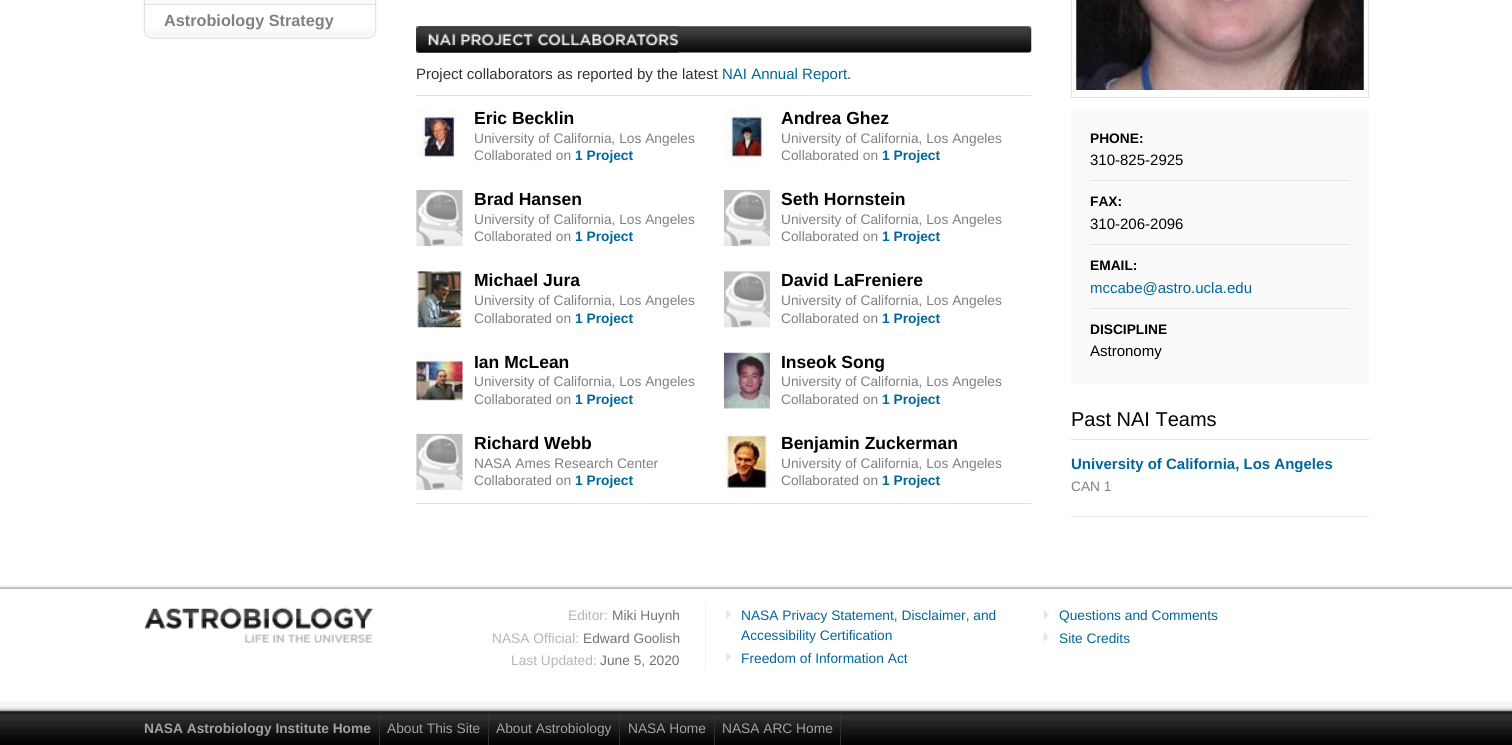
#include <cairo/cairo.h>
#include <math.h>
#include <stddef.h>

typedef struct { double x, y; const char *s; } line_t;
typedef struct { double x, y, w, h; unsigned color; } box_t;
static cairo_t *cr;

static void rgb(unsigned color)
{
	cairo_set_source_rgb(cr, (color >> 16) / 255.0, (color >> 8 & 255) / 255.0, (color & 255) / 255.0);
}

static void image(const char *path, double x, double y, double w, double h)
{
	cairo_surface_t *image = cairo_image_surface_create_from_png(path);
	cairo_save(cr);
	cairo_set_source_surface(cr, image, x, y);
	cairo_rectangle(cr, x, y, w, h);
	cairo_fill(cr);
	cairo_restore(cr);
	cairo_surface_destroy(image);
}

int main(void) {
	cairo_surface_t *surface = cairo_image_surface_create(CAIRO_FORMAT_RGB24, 1512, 745);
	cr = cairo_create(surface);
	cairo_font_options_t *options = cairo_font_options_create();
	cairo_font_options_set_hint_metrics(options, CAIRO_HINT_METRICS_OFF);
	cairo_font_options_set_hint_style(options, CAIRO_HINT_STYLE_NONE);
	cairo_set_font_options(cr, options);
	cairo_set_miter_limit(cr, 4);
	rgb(0xffffff);
	cairo_paint(cr);
	image("img/1.png", 0, 585, 1512, 4);
	image("img/2.png", 143, 0, 234, 5);
	image("img/3.png", 143, 5, 234, 34);
	image("img/4.png", 416, 26, 616, 27);
	image("img/5.png", 416, 26, 263, 27);
	rgb(0xdfdfdf);
	cairo_rectangle(cr, 416, 95, 615, 1);
	cairo_fill(cr);
	cairo_rectangle(cr, 416, 503, 615, 1);
	cairo_fill(cr);
	image("img/6.png", 416, 109, 41, 50);
	image("img/7.png", 724, 109, 40, 56);
	image("img/8.png", 416, 190, 47, 57);
	image("img/9.png", 723, 190, 47, 57);
	image("img/10.png", 416, 271, 47, 57);
	image("img/11.png", 723, 271, 47, 57);
	image("img/12.png", 416, 353, 47, 50);
	image("img/13.png", 723, 352, 47, 57);
	image("img/14.png", 416, 433, 47, 57);
	image("img/15.png", 724, 434, 46, 56);
	cairo_rectangle(cr, 1071.5, -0.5, 297, 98);
	rgb(0xe5e5e5);
	cairo_set_line_width(cr, 1);
	cairo_stroke(cr);
	image("img/16.png", 1076, 0, 288, 90);
	{
		static const box_t items[] = {
			{1071, 111, 298, 273, 0xfafafa},
			{1090, 180, 260, 1, 0xe5e5e5},
			{1090, 244, 260, 1, 0xe5e5e5},
			{1090, 308, 260, 1, 0xe5e5e5},
			{1071, 439, 298, 1, 0xe5e5e5},
			{1071, 516, 298, 1, 0xe5e5e5},
		};
		for (size_t i = 0; i < sizeof items / sizeof *items; i++) {
			rgb(items[i].color);
			cairo_rectangle(cr, items[i].x, items[i].y, items[i].w, items[i].h);
			cairo_fill(cr);
		}
	}
	image("img/17.png", 0, 701, 1512, 44);
	image("img/18.png", 144, 607, 229, 36);
	rgb(0xefefef);
	cairo_rectangle(cr, 705, 604, 1, 67);
	cairo_fill(cr);
	image("img/19.png", 726, 610, 6, 9);
	image("img/20.png", 726, 652, 6, 10);
	image("img/21.png", 1043, 610, 6, 9);
	image("img/22.png", 1043, 632, 6, 10);
	{
		static const box_t items[] = {
			{379, 711, 1, 34, 0x2c3231},
			{488, 711, 1, 34, 0x2c3231},
			{619, 711, 1, 34, 0x2c3231},
			{714, 711, 1, 34, 0x2c3231},
			{840, 711, 1, 34, 0x2c3231},
		};
		for (size_t i = 0; i < sizeof items / sizeof *items; i++) {
			rgb(items[i].color);
			cairo_rectangle(cr, items[i].x, items[i].y, items[i].w, items[i].h);
			cairo_fill(cr);
		}
	}
	cairo_select_font_face(cr, "Liberation Sans", CAIRO_FONT_SLANT_NORMAL, CAIRO_FONT_WEIGHT_BOLD);
	cairo_set_font_size(cr, 16.25);
	rgb(0x808080);
	cairo_move_to(cr, 164, 26);
	cairo_show_text(cr, "Astrobiology Strategy");
	cairo_select_font_face(cr, "Liberation Sans", CAIRO_FONT_SLANT_NORMAL, CAIRO_FONT_WEIGHT_NORMAL);
	cairo_set_font_size(cr, 15);
	rgb(0x333333);
	cairo_move_to(cr, 416, 79);
	cairo_show_text(cr, "Project collaborators as reported by the latest");
	rgb(0x006699);
	cairo_move_to(cr, 722, 79);
	cairo_show_text(cr, "NAI Annual Report");
	rgb(0x333333);
	cairo_move_to(cr, 847, 79);
	cairo_show_text(cr, ".");
	cairo_select_font_face(cr, "Liberation Sans", CAIRO_FONT_SLANT_NORMAL, CAIRO_FONT_WEIGHT_BOLD);
	cairo_set_font_size(cr, 17.5);
	rgb(0x000000);
	cairo_move_to(cr, 474, 124);
	cairo_show_text(cr, "Eric Becklin");
	cairo_select_font_face(cr, "Liberation Sans", CAIRO_FONT_SLANT_NORMAL, CAIRO_FONT_WEIGHT_NORMAL);
	cairo_set_font_size(cr, 13.75);
	rgb(0x808080);
	cairo_move_to(cr, 474, 143);
	cairo_show_text(cr, "University of California, Los Angeles");
	cairo_move_to(cr, 474, 160);
	cairo_show_text(cr, "Collaborated on");
	cairo_select_font_face(cr, "Liberation Sans", CAIRO_FONT_SLANT_NORMAL, CAIRO_FONT_WEIGHT_BOLD);
	rgb(0x006699);
	cairo_move_to(cr, 575, 160);
	cairo_show_text(cr, "1 Project");
	cairo_set_font_size(cr, 17.5);
	rgb(0x000000);
	cairo_move_to(cr, 781, 124);
	cairo_show_text(cr, "Andrea Ghez");
	cairo_select_font_face(cr, "Liberation Sans", CAIRO_FONT_SLANT_NORMAL, CAIRO_FONT_WEIGHT_NORMAL);
	cairo_set_font_size(cr, 13.75);
	rgb(0x808080);
	cairo_move_to(cr, 781, 143);
	cairo_show_text(cr, "University of California, Los Angeles");
	cairo_move_to(cr, 781, 160);
	cairo_show_text(cr, "Collaborated on");
	cairo_select_font_face(cr, "Liberation Sans", CAIRO_FONT_SLANT_NORMAL, CAIRO_FONT_WEIGHT_BOLD);
	rgb(0x006699);
	cairo_move_to(cr, 882, 160);
	cairo_show_text(cr, "1 Project");
	cairo_set_font_size(cr, 17.5);
	rgb(0x000000);
	cairo_move_to(cr, 474, 205);
	cairo_show_text(cr, "Brad Hansen");
	cairo_select_font_face(cr, "Liberation Sans", CAIRO_FONT_SLANT_NORMAL, CAIRO_FONT_WEIGHT_NORMAL);
	cairo_set_font_size(cr, 13.75);
	rgb(0x808080);
	cairo_move_to(cr, 474, 224);
	cairo_show_text(cr, "University of California, Los Angeles");
	cairo_move_to(cr, 474, 241);
	cairo_show_text(cr, "Collaborated on");
	cairo_select_font_face(cr, "Liberation Sans", CAIRO_FONT_SLANT_NORMAL, CAIRO_FONT_WEIGHT_BOLD);
	rgb(0x006699);
	cairo_move_to(cr, 575, 241);
	cairo_show_text(cr, "1 Project");
	cairo_set_font_size(cr, 17.5);
	rgb(0x000000);
	cairo_move_to(cr, 781, 205);
	cairo_show_text(cr, "Seth Hornstein");
	cairo_select_font_face(cr, "Liberation Sans", CAIRO_FONT_SLANT_NORMAL, CAIRO_FONT_WEIGHT_NORMAL);
	cairo_set_font_size(cr, 13.75);
	rgb(0x808080);
	cairo_move_to(cr, 781, 224);
	cairo_show_text(cr, "University of California, Los Angeles");
	cairo_move_to(cr, 781, 241);
	cairo_show_text(cr, "Collaborated on");
	cairo_select_font_face(cr, "Liberation Sans", CAIRO_FONT_SLANT_NORMAL, CAIRO_FONT_WEIGHT_BOLD);
	rgb(0x006699);
	cairo_move_to(cr, 882, 241);
	cairo_show_text(cr, "1 Project");
	cairo_set_font_size(cr, 17.5);
	rgb(0x000000);
	cairo_move_to(cr, 474, 286);
	cairo_show_text(cr, "Michael Jura");
	cairo_select_font_face(cr, "Liberation Sans", CAIRO_FONT_SLANT_NORMAL, CAIRO_FONT_WEIGHT_NORMAL);
	cairo_set_font_size(cr, 13.75);
	rgb(0x808080);
	cairo_move_to(cr, 474, 305);
	cairo_show_text(cr, "University of California, Los Angeles");
	cairo_move_to(cr, 474, 323);
	cairo_show_text(cr, "Collaborated on");
	cairo_select_font_face(cr, "Liberation Sans", CAIRO_FONT_SLANT_NORMAL, CAIRO_FONT_WEIGHT_BOLD);
	rgb(0x006699);
	cairo_move_to(cr, 575, 323);
	cairo_show_text(cr, "1 Project");
	cairo_set_font_size(cr, 17.5);
	rgb(0x000000);
	cairo_move_to(cr, 781, 286);
	cairo_show_text(cr, "David LaFreniere");
	cairo_select_font_face(cr, "Liberation Sans", CAIRO_FONT_SLANT_NORMAL, CAIRO_FONT_WEIGHT_NORMAL);
	cairo_set_font_size(cr, 13.75);
	rgb(0x808080);
	cairo_move_to(cr, 781, 305);
	cairo_show_text(cr, "University of California, Los Angeles");
	cairo_move_to(cr, 781, 323);
	cairo_show_text(cr, "Collaborated on");
	cairo_select_font_face(cr, "Liberation Sans", CAIRO_FONT_SLANT_NORMAL, CAIRO_FONT_WEIGHT_BOLD);
	rgb(0x006699);
	cairo_move_to(cr, 882, 323);
	cairo_show_text(cr, "1 Project");
	cairo_set_font_size(cr, 17.5);
	rgb(0x000000);
	cairo_move_to(cr, 474, 368);
	cairo_show_text(cr, "Ian McLean");
	cairo_select_font_face(cr, "Liberation Sans", CAIRO_FONT_SLANT_NORMAL, CAIRO_FONT_WEIGHT_NORMAL);
	cairo_set_font_size(cr, 13.75);
	rgb(0x808080);
	cairo_move_to(cr, 474, 386);
	cairo_show_text(cr, "University of California, Los Angeles");
	cairo_move_to(cr, 474, 404);
	cairo_show_text(cr, "Collaborated on");
	cairo_select_font_face(cr, "Liberation Sans", CAIRO_FONT_SLANT_NORMAL, CAIRO_FONT_WEIGHT_BOLD);
	rgb(0x006699);
	cairo_move_to(cr, 575, 404);
	cairo_show_text(cr, "1 Project");
	cairo_set_font_size(cr, 17.5);
	rgb(0x000000);
	cairo_move_to(cr, 781, 368);
	cairo_show_text(cr, "Inseok Song");
	cairo_select_font_face(cr, "Liberation Sans", CAIRO_FONT_SLANT_NORMAL, CAIRO_FONT_WEIGHT_NORMAL);
	cairo_set_font_size(cr, 13.75);
	rgb(0x808080);
	cairo_move_to(cr, 781, 386);
	cairo_show_text(cr, "University of California, Los Angeles");
	cairo_move_to(cr, 781, 404);
	cairo_show_text(cr, "Collaborated on");
	cairo_select_font_face(cr, "Liberation Sans", CAIRO_FONT_SLANT_NORMAL, CAIRO_FONT_WEIGHT_BOLD);
	rgb(0x006699);
	cairo_move_to(cr, 882, 404);
	cairo_show_text(cr, "1 Project");
	cairo_set_font_size(cr, 17.5);
	rgb(0x000000);
	cairo_move_to(cr, 474, 449);
	cairo_show_text(cr, "Richard Webb");
	cairo_select_font_face(cr, "Liberation Sans", CAIRO_FONT_SLANT_NORMAL, CAIRO_FONT_WEIGHT_NORMAL);
	cairo_set_font_size(cr, 13.75);
	rgb(0x808080);
	cairo_move_to(cr, 474, 468);
	cairo_show_text(cr, "NASA Ames Research Center");
	cairo_move_to(cr, 474, 485);
	cairo_show_text(cr, "Collaborated on");
	cairo_select_font_face(cr, "Liberation Sans", CAIRO_FONT_SLANT_NORMAL, CAIRO_FONT_WEIGHT_BOLD);
	rgb(0x006699);
	cairo_move_to(cr, 575, 485);
	cairo_show_text(cr, "1 Project");
	cairo_set_font_size(cr, 17.5);
	rgb(0x000000);
	cairo_move_to(cr, 781, 449);
	cairo_show_text(cr, "Benjamin Zuckerman");
	cairo_select_font_face(cr, "Liberation Sans", CAIRO_FONT_SLANT_NORMAL, CAIRO_FONT_WEIGHT_NORMAL);
	cairo_set_font_size(cr, 13.75);
	rgb(0x808080);
	cairo_move_to(cr, 781, 468);
	cairo_show_text(cr, "University of California, Los Angeles");
	cairo_move_to(cr, 781, 485);
	cairo_show_text(cr, "Collaborated on");
	cairo_select_font_face(cr, "Liberation Sans", CAIRO_FONT_SLANT_NORMAL, CAIRO_FONT_WEIGHT_BOLD);
	rgb(0x006699);
	cairo_move_to(cr, 882, 485);
	cairo_show_text(cr, "1 Project");
	rgb(0x000000);
	cairo_move_to(cr, 1090, 143);
	cairo_show_text(cr, "PHONE:");
	cairo_select_font_face(cr, "Liberation Sans", CAIRO_FONT_SLANT_NORMAL, CAIRO_FONT_WEIGHT_NORMAL);
	cairo_set_font_size(cr, 15);
	cairo_move_to(cr, 1090, 165);
	cairo_show_text(cr, "310-825-2925");
	cairo_select_font_face(cr, "Liberation Sans", CAIRO_FONT_SLANT_NORMAL, CAIRO_FONT_WEIGHT_BOLD);
	cairo_set_font_size(cr, 13.75);
	cairo_move_to(cr, 1090, 206);
	cairo_show_text(cr, "FAX:");
	cairo_select_font_face(cr, "Liberation Sans", CAIRO_FONT_SLANT_NORMAL, CAIRO_FONT_WEIGHT_NORMAL);
	cairo_set_font_size(cr, 15);
	cairo_move_to(cr, 1090, 229);
	cairo_show_text(cr, "310-206-2096");
	cairo_select_font_face(cr, "Liberation Sans", CAIRO_FONT_SLANT_NORMAL, CAIRO_FONT_WEIGHT_BOLD);
	cairo_set_font_size(cr, 13.75);
	cairo_move_to(cr, 1090, 270);
	cairo_show_text(cr, "EMAIL:");
	cairo_select_font_face(cr, "Liberation Sans", CAIRO_FONT_SLANT_NORMAL, CAIRO_FONT_WEIGHT_NORMAL);
	cairo_set_font_size(cr, 15);
	rgb(0x006699);
	cairo_move_to(cr, 1090, 293);
	cairo_show_text(cr, "mccabe@astro.ucla.edu");
	cairo_select_font_face(cr, "Liberation Sans", CAIRO_FONT_SLANT_NORMAL, CAIRO_FONT_WEIGHT_BOLD);
	cairo_set_font_size(cr, 13.75);
	rgb(0x000000);
	cairo_move_to(cr, 1090, 334);
	cairo_show_text(cr, "DISCIPLINE");
	cairo_select_font_face(cr, "Liberation Sans", CAIRO_FONT_SLANT_NORMAL, CAIRO_FONT_WEIGHT_NORMAL);
	cairo_set_font_size(cr, 15);
	cairo_move_to(cr, 1090, 356);
	cairo_show_text(cr, "Astronomy");
	cairo_set_font_size(cr, 20);
	cairo_move_to(cr, 1071, 426);
	cairo_show_text(cr, "Past NAI Teams");
	cairo_select_font_face(cr, "Liberation Sans", CAIRO_FONT_SLANT_NORMAL, CAIRO_FONT_WEIGHT_BOLD);
	cairo_set_font_size(cr, 15);
	rgb(0x006699);
	cairo_move_to(cr, 1071, 469);
	cairo_show_text(cr, "University of California, Los Angeles");
	cairo_select_font_face(cr, "Liberation Sans", CAIRO_FONT_SLANT_NORMAL, CAIRO_FONT_WEIGHT_NORMAL);
	cairo_set_font_size(cr, 13.75);
	rgb(0x808080);
	cairo_move_to(cr, 1071, 491);
	cairo_show_text(cr, "CAN 1");
	rgb(0xb5b5b5);
	cairo_move_to(cr, 568, 620);
	cairo_show_text(cr, "Editor:");
	rgb(0x737373);
	cairo_move_to(cr, 612, 620);
	cairo_show_text(cr, "Miki Huynh");
	rgb(0xb5b5b5);
	cairo_move_to(cr, 492, 643);
	cairo_show_text(cr, "NASA Official:");
	rgb(0x737373);
	cairo_move_to(cr, 583, 643);
	cairo_show_text(cr, "Edward Goolish");
	rgb(0xb5b5b5);
	cairo_move_to(cr, 511, 665);
	cairo_show_text(cr, "Last Updated:");
	rgb(0x737373);
	cairo_move_to(cr, 600, 665);
	cairo_show_text(cr, "June 5, 2020");
	rgb(0x006699);
	{
		static const line_t items[] = {
			{741, 620, "NASA Privacy Statement, Disclaimer, and"},
			{741, 640, "Accessibility Certification"},
			{741, 663, "Freedom of Information Act"},
			{1059, 620, "Questions and Comments"},
			{1059, 643, "Site Credits"},
		};
		for (size_t i = 0; i < sizeof items / sizeof *items; i++) {
			cairo_move_to(cr, items[i].x, items[i].y);
			cairo_show_text(cr, items[i].s);
		}
	}
	cairo_select_font_face(cr, "Liberation Sans", CAIRO_FONT_SLANT_NORMAL, CAIRO_FONT_WEIGHT_BOLD);
	rgb(0xa1a1a1);
	cairo_move_to(cr, 144, 733);
	cairo_show_text(cr, "NASA Astrobiology Institute Home");
	cairo_select_font_face(cr, "Liberation Sans", CAIRO_FONT_SLANT_NORMAL, CAIRO_FONT_WEIGHT_NORMAL);
	{
		static const line_t items[] = {
			{387, 733, "About This Site"},
			{496, 733, "About Astrobiology"},
			{628, 733, "NASA Home"},
			{722, 733, "NASA ARC Home"},
		};
		for (size_t i = 0; i < sizeof items / sizeof *items; i++) {
			cairo_move_to(cr, items[i].x, items[i].y);
			cairo_show_text(cr, items[i].s);
		}
	}
	cairo_surface_write_to_png(surface, "page.png");
	cairo_font_options_destroy(options);
	cairo_destroy(cr);
	cairo_surface_destroy(surface);
	return 0;
}
